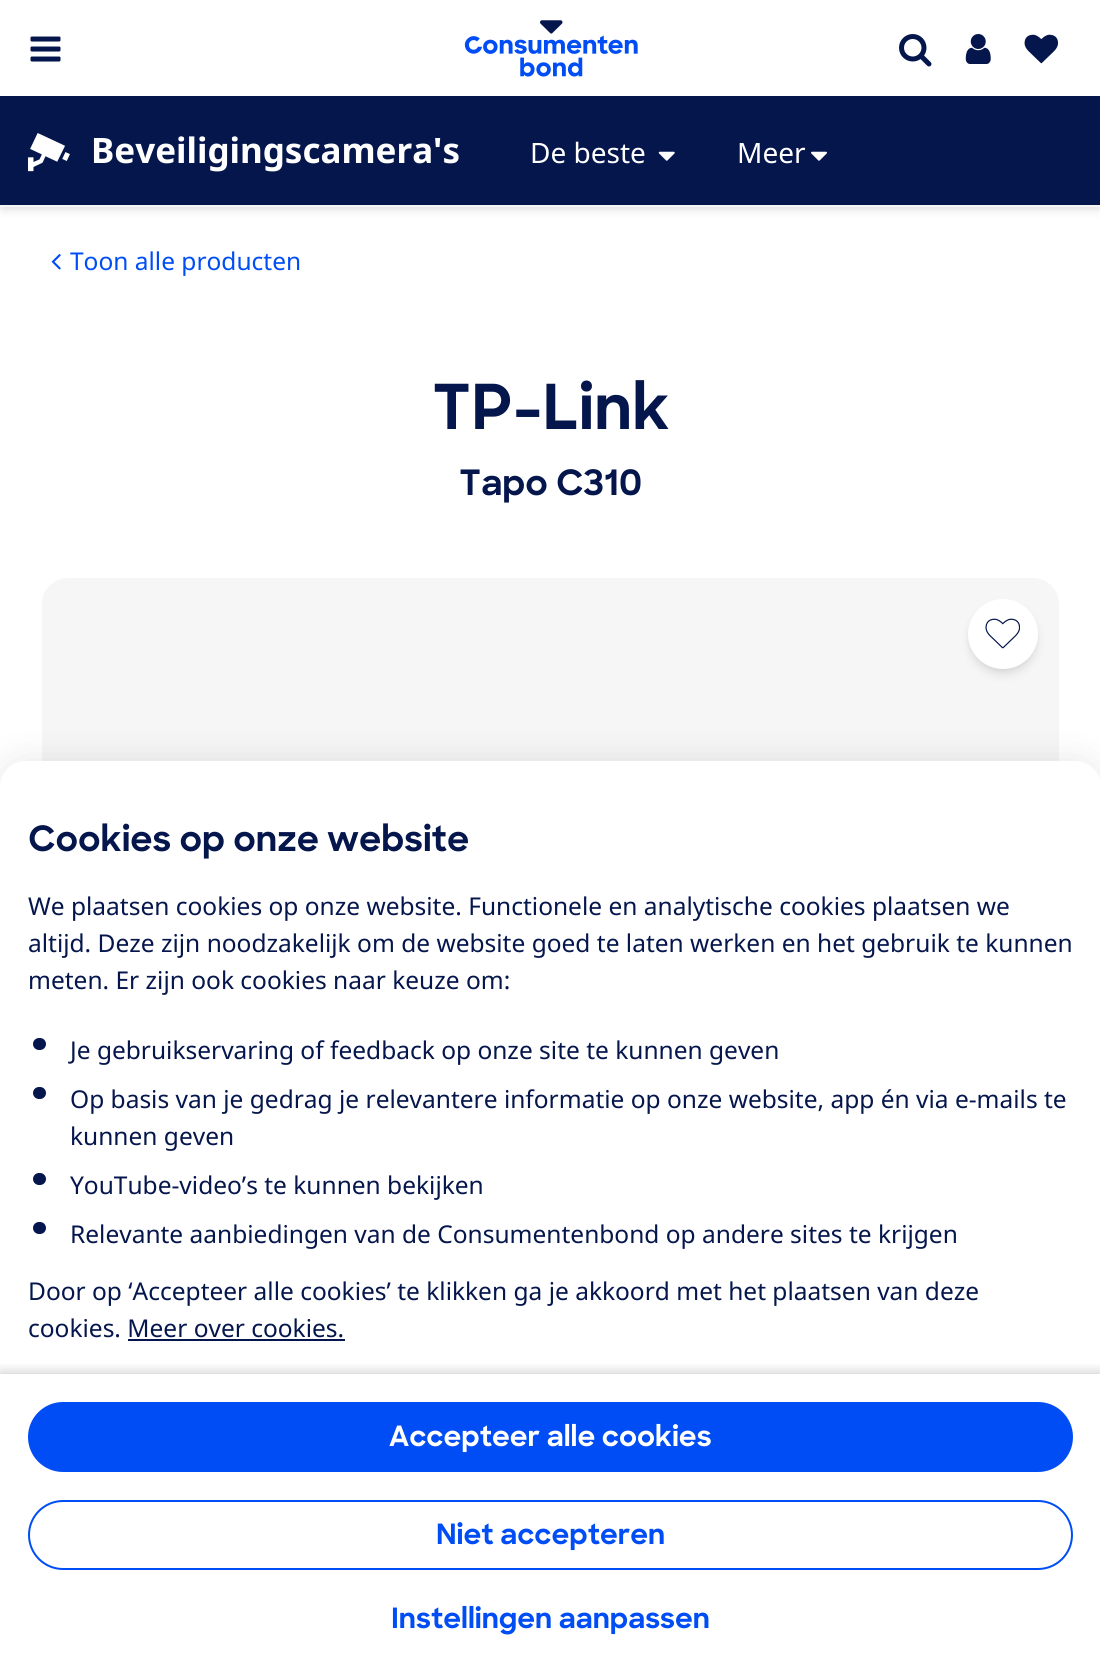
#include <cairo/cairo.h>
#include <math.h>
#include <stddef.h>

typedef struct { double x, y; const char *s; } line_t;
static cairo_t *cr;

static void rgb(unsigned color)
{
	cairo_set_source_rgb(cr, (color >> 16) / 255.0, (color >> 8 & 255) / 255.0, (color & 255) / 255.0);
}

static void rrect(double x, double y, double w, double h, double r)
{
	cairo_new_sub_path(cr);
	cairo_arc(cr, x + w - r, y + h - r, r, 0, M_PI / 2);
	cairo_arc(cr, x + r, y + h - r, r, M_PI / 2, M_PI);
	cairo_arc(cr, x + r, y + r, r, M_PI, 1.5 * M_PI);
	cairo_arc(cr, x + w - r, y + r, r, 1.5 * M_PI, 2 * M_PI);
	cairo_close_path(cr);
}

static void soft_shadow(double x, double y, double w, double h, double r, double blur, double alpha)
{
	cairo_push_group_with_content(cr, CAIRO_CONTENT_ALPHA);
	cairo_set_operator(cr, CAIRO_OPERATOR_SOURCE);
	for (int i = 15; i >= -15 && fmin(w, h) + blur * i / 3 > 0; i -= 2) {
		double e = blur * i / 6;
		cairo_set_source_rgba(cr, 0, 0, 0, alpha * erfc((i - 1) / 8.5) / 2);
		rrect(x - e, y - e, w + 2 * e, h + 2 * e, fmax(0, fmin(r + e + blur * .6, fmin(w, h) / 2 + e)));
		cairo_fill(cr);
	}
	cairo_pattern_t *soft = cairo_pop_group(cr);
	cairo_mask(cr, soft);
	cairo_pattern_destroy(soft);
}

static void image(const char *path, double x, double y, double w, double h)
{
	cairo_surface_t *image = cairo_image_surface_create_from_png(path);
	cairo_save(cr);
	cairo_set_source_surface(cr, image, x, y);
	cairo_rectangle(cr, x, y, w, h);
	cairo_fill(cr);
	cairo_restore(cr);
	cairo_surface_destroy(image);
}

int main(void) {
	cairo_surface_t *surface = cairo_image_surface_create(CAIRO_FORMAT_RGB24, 1100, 1660);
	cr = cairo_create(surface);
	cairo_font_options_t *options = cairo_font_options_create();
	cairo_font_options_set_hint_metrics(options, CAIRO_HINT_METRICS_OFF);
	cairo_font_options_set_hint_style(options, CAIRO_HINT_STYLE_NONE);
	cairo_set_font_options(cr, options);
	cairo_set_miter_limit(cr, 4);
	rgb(0xffffff);
	cairo_paint(cr);
	image("img/1.png", 30, 36, 31, 26);
	image("img/2.png", 464, 20, 174, 57);
	image("img/3.png", 899, 34, 33, 33);
	image("img/4.png", 965, 34, 26, 30);
	image("img/5.png", 1024, 34, 34, 30);
	rgb(0x000000);
	soft_shadow(2, 102, 1097, 105, 0, 3.5, 0.06);
	soft_shadow(2, 105, 1097, 105, 0, 5, 0.1);
	rgb(0x05164c);
	cairo_rectangle(cr, 0, 96, 1100, 109);
	cairo_fill(cr);
	image("img/6.png", 28, 133, 42, 39);
	image("img/7.png", 658, 151, 17, 10);
	image("img/8.png", 811, 151, 16, 10);
	rgb(0xf6f6f6);
	cairo_rectangle(cr, 0, 205, 1100, 2);
	cairo_fill(cr);
	image("img/9.png", 51, 254, 10, 16);
	rrect(42, 578, 1017, 686, 26);
	cairo_fill(cr);
	rgb(0x000000);
	soft_shadow(970, 604, 66, 66, 33, 3.5, 0.06);
	soft_shadow(970, 607, 66, 67, 33, 5, 0.1);
	rgb(0xffffff);
	cairo_arc(cr, 1003, 634, 35, 0, 2 * M_PI);
	cairo_fill(cr);
	image("img/10.png", 985, 618, 35, 31);
	rgb(0x000000);
	soft_shadow(0, 761, 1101, 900, 26, 17.5, 0.1);
	rgb(0xffffff);
	cairo_new_path(cr);
	cairo_move_to(cr, 26, 761);
	cairo_line_to(cr, 1075, 761);
	cairo_curve_to(cr, 1089.5, 761, 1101, 772.5, 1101, 787);
	cairo_line_to(cr, 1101, 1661);
	cairo_line_to(cr, 0, 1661);
	cairo_line_to(cr, 0, 787);
	cairo_curve_to(cr, 0, 772.5, 11.5, 761, 26, 761);
	cairo_close_path(cr);
	cairo_fill(cr);
	rgb(0x05164c);
	rrect(33, 1038, 13, 12, 6);
	cairo_fill(cr);
	rrect(33, 1087, 13, 12, 6);
	cairo_fill(cr);
	rrect(33, 1173, 13, 12, 6);
	cairo_fill(cr);
	rrect(33, 1222, 13, 12, 6);
	cairo_fill(cr);
	cairo_rectangle(cr, 128, 1339, 217, 2);
	cairo_fill(cr);
	cairo_save(cr);
	cairo_rectangle(cr, 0, 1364, 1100, 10);
	cairo_clip(cr);
	rgb(0x000000);
	soft_shadow(0, 1374, 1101, 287, 0, 7, 0.25);
	cairo_restore(cr);
	rgb(0x004df5);
	rrect(28, 1402, 1045, 70, 35);
	cairo_fill(cr);
	rrect(29, 1501, 1043, 68, 34);
	cairo_stroke(cr);
	cairo_select_font_face(cr, "Noto Sans", CAIRO_FONT_SLANT_NORMAL, CAIRO_FONT_WEIGHT_BOLD);
	cairo_set_font_size(cr, 35);
	rgb(0xffffff);
	cairo_move_to(cr, 91, 163);
	cairo_show_text(cr, "Beveiligingscamera's");
	cairo_select_font_face(cr, "Noto Sans", CAIRO_FONT_SLANT_NORMAL, CAIRO_FONT_WEIGHT_NORMAL);
	cairo_set_font_size(cr, 28);
	cairo_move_to(cr, 530, 163);
	cairo_show_text(cr, "De beste");
	cairo_move_to(cr, 737, 163);
	cairo_show_text(cr, "Meer");
	cairo_set_font_size(cr, 24.5);
	rgb(0x004df5);
	cairo_move_to(cr, 70, 270);
	cairo_show_text(cr, "Toon alle producten");
	cairo_select_font_face(cr, "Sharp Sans", CAIRO_FONT_SLANT_NORMAL, CAIRO_FONT_WEIGHT_BOLD);
	cairo_set_font_size(cr, 62);
	rgb(0x05164c);
	cairo_move_to(cr, 432, 429);
	cairo_show_text(cr, "TP-Link");
	cairo_set_font_size(cr, 35);
	cairo_move_to(cr, 459, 495);
	cairo_show_text(cr, "Tapo C310");
	cairo_move_to(cr, 28, 851);
	cairo_show_text(cr, "Cookies op onze website");
	cairo_select_font_face(cr, "Noto Sans", CAIRO_FONT_SLANT_NORMAL, CAIRO_FONT_WEIGHT_NORMAL);
	cairo_set_font_size(cr, 24.5);
	{
		static const line_t items[] = {
			{28, 915, "We plaatsen cookies op onze website. Functionele en analytische cookies plaatsen we"},
			{28, 952, "altijd. Deze zijn noodzakelijk om de website goed te laten werken en het gebruik te kunnen"},
			{28, 989, "meten. Er zijn ook cookies naar keuze om:"},
			{70, 1059, "Je gebruikservaring of feedback op onze site te kunnen geven"},
			{70, 1108, "Op basis van je gedrag je relevantere informatie op onze website, app én via e-mails te"},
			{70, 1145, "kunnen geven"},
			{70, 1194, "YouTube-video’s te kunnen bekijken"},
			{70, 1243, "Relevante aanbiedingen van de Consumentenbond op andere sites te krijgen"},
			{28, 1300, "Door op ‘Accepteer alle cookies’ te klikken ga je akkoord met het plaatsen van deze"},
			{28, 1337, "cookies. Meer over cookies."},
		};
		for (size_t i = 0; i < sizeof items / sizeof *items; i++) {
			cairo_move_to(cr, items[i].x, items[i].y);
			cairo_show_text(cr, items[i].s);
		}
	}
	cairo_select_font_face(cr, "Sharp Sans", CAIRO_FONT_SLANT_NORMAL, CAIRO_FONT_WEIGHT_BOLD);
	cairo_set_font_size(cr, 28);
	rgb(0xffffff);
	cairo_move_to(cr, 389, 1446);
	cairo_show_text(cr, "Accepteer alle cookies");
	rgb(0x004df5);
	cairo_move_to(cr, 436, 1544);
	cairo_show_text(cr, "Niet accepteren");
	cairo_move_to(cr, 391, 1628);
	cairo_show_text(cr, "Instellingen aanpassen");
	cairo_surface_write_to_png(surface, "page.png");
	cairo_font_options_destroy(options);
	cairo_destroy(cr);
	cairo_surface_destroy(surface);
	return 0;
}
